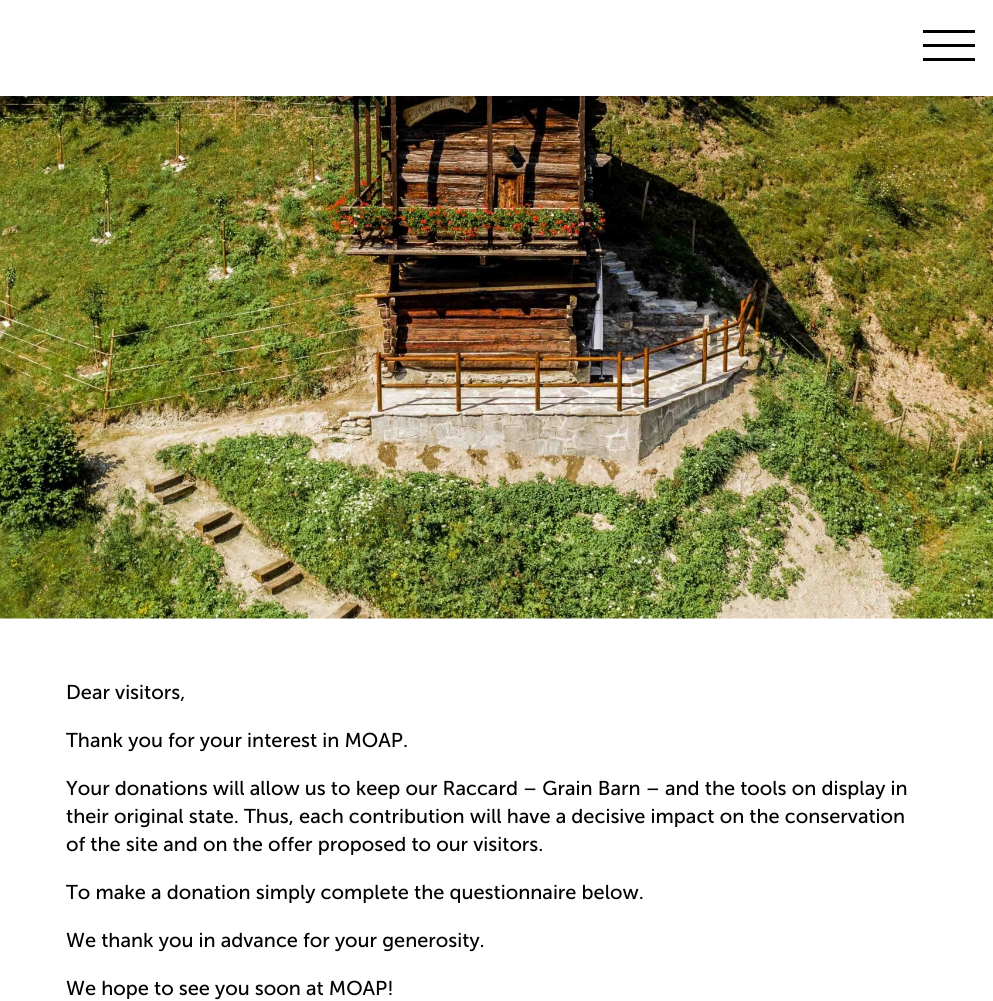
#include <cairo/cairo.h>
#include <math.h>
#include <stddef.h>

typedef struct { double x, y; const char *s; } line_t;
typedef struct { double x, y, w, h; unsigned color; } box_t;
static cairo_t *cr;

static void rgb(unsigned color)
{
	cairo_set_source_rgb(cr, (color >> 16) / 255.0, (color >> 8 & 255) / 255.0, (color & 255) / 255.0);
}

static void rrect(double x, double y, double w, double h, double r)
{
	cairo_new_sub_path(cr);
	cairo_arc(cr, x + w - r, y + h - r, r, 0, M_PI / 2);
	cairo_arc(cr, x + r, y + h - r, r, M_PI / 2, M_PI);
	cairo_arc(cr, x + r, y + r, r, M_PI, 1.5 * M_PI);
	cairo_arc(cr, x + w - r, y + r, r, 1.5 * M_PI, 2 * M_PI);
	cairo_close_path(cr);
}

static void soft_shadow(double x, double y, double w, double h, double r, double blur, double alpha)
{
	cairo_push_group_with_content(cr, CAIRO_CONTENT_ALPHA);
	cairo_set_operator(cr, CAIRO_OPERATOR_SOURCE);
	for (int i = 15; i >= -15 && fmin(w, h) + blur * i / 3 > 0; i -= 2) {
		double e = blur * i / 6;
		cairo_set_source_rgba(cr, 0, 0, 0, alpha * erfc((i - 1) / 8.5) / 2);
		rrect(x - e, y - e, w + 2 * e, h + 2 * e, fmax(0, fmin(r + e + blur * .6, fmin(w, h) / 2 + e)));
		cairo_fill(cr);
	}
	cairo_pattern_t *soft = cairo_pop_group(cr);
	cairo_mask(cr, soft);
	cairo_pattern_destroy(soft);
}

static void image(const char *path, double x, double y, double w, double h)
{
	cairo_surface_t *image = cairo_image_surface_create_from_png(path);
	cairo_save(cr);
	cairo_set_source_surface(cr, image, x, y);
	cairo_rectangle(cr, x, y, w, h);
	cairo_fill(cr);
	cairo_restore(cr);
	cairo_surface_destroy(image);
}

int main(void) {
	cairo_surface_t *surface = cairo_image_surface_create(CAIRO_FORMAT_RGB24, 993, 1001);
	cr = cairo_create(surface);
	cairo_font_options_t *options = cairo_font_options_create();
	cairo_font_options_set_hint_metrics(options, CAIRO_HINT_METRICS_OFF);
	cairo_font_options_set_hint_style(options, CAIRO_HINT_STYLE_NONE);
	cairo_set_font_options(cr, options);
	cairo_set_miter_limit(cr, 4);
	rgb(0xffffff);
	cairo_paint(cr);
	image("img/1.png", 0, 96, 993, 523);
	rgb(0x000000);
	soft_shadow(0, 10, 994, 96, 0, 10, 0.15);
	{
		static const box_t items[] = {
			{0, 0, 993, 96, 0xffffff},
			{923, 30, 52, 3, 0x000000},
			{923, 44, 52, 3, 0x000000},
			{923, 58, 52, 3, 0x000000},
		};
		for (size_t i = 0; i < sizeof items / sizeof *items; i++) {
			rgb(items[i].color);
			cairo_rectangle(cr, items[i].x, items[i].y, items[i].w, items[i].h);
			cairo_fill(cr);
		}
	}
	cairo_select_font_face(cr, "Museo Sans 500", CAIRO_FONT_SLANT_NORMAL, CAIRO_FONT_WEIGHT_NORMAL);
	cairo_set_font_size(cr, 20);
	{
		static const line_t items[] = {
			{66, 699, "Dear visitors,"},
			{66, 747, "Thank you for your interest in MOAP."},
			{66, 795, "Your donations will allow us to keep our Raccard – Grain Barn – and the tools on display in"},
			{66, 823, "their original state. Thus, each contribution will have a decisive impact on the conservation"},
			{66, 851, "of the site and on the offer proposed to our visitors."},
			{66, 899, "To make a donation simply complete the questionnaire below."},
			{66, 947, "We thank you in advance for your generosity."},
			{66, 995, "We hope to see you soon at MOAP!"},
		};
		for (size_t i = 0; i < sizeof items / sizeof *items; i++) {
			cairo_move_to(cr, items[i].x, items[i].y);
			cairo_show_text(cr, items[i].s);
		}
	}
	cairo_surface_write_to_png(surface, "page.png");
	cairo_font_options_destroy(options);
	cairo_destroy(cr);
	cairo_surface_destroy(surface);
	return 0;
}
